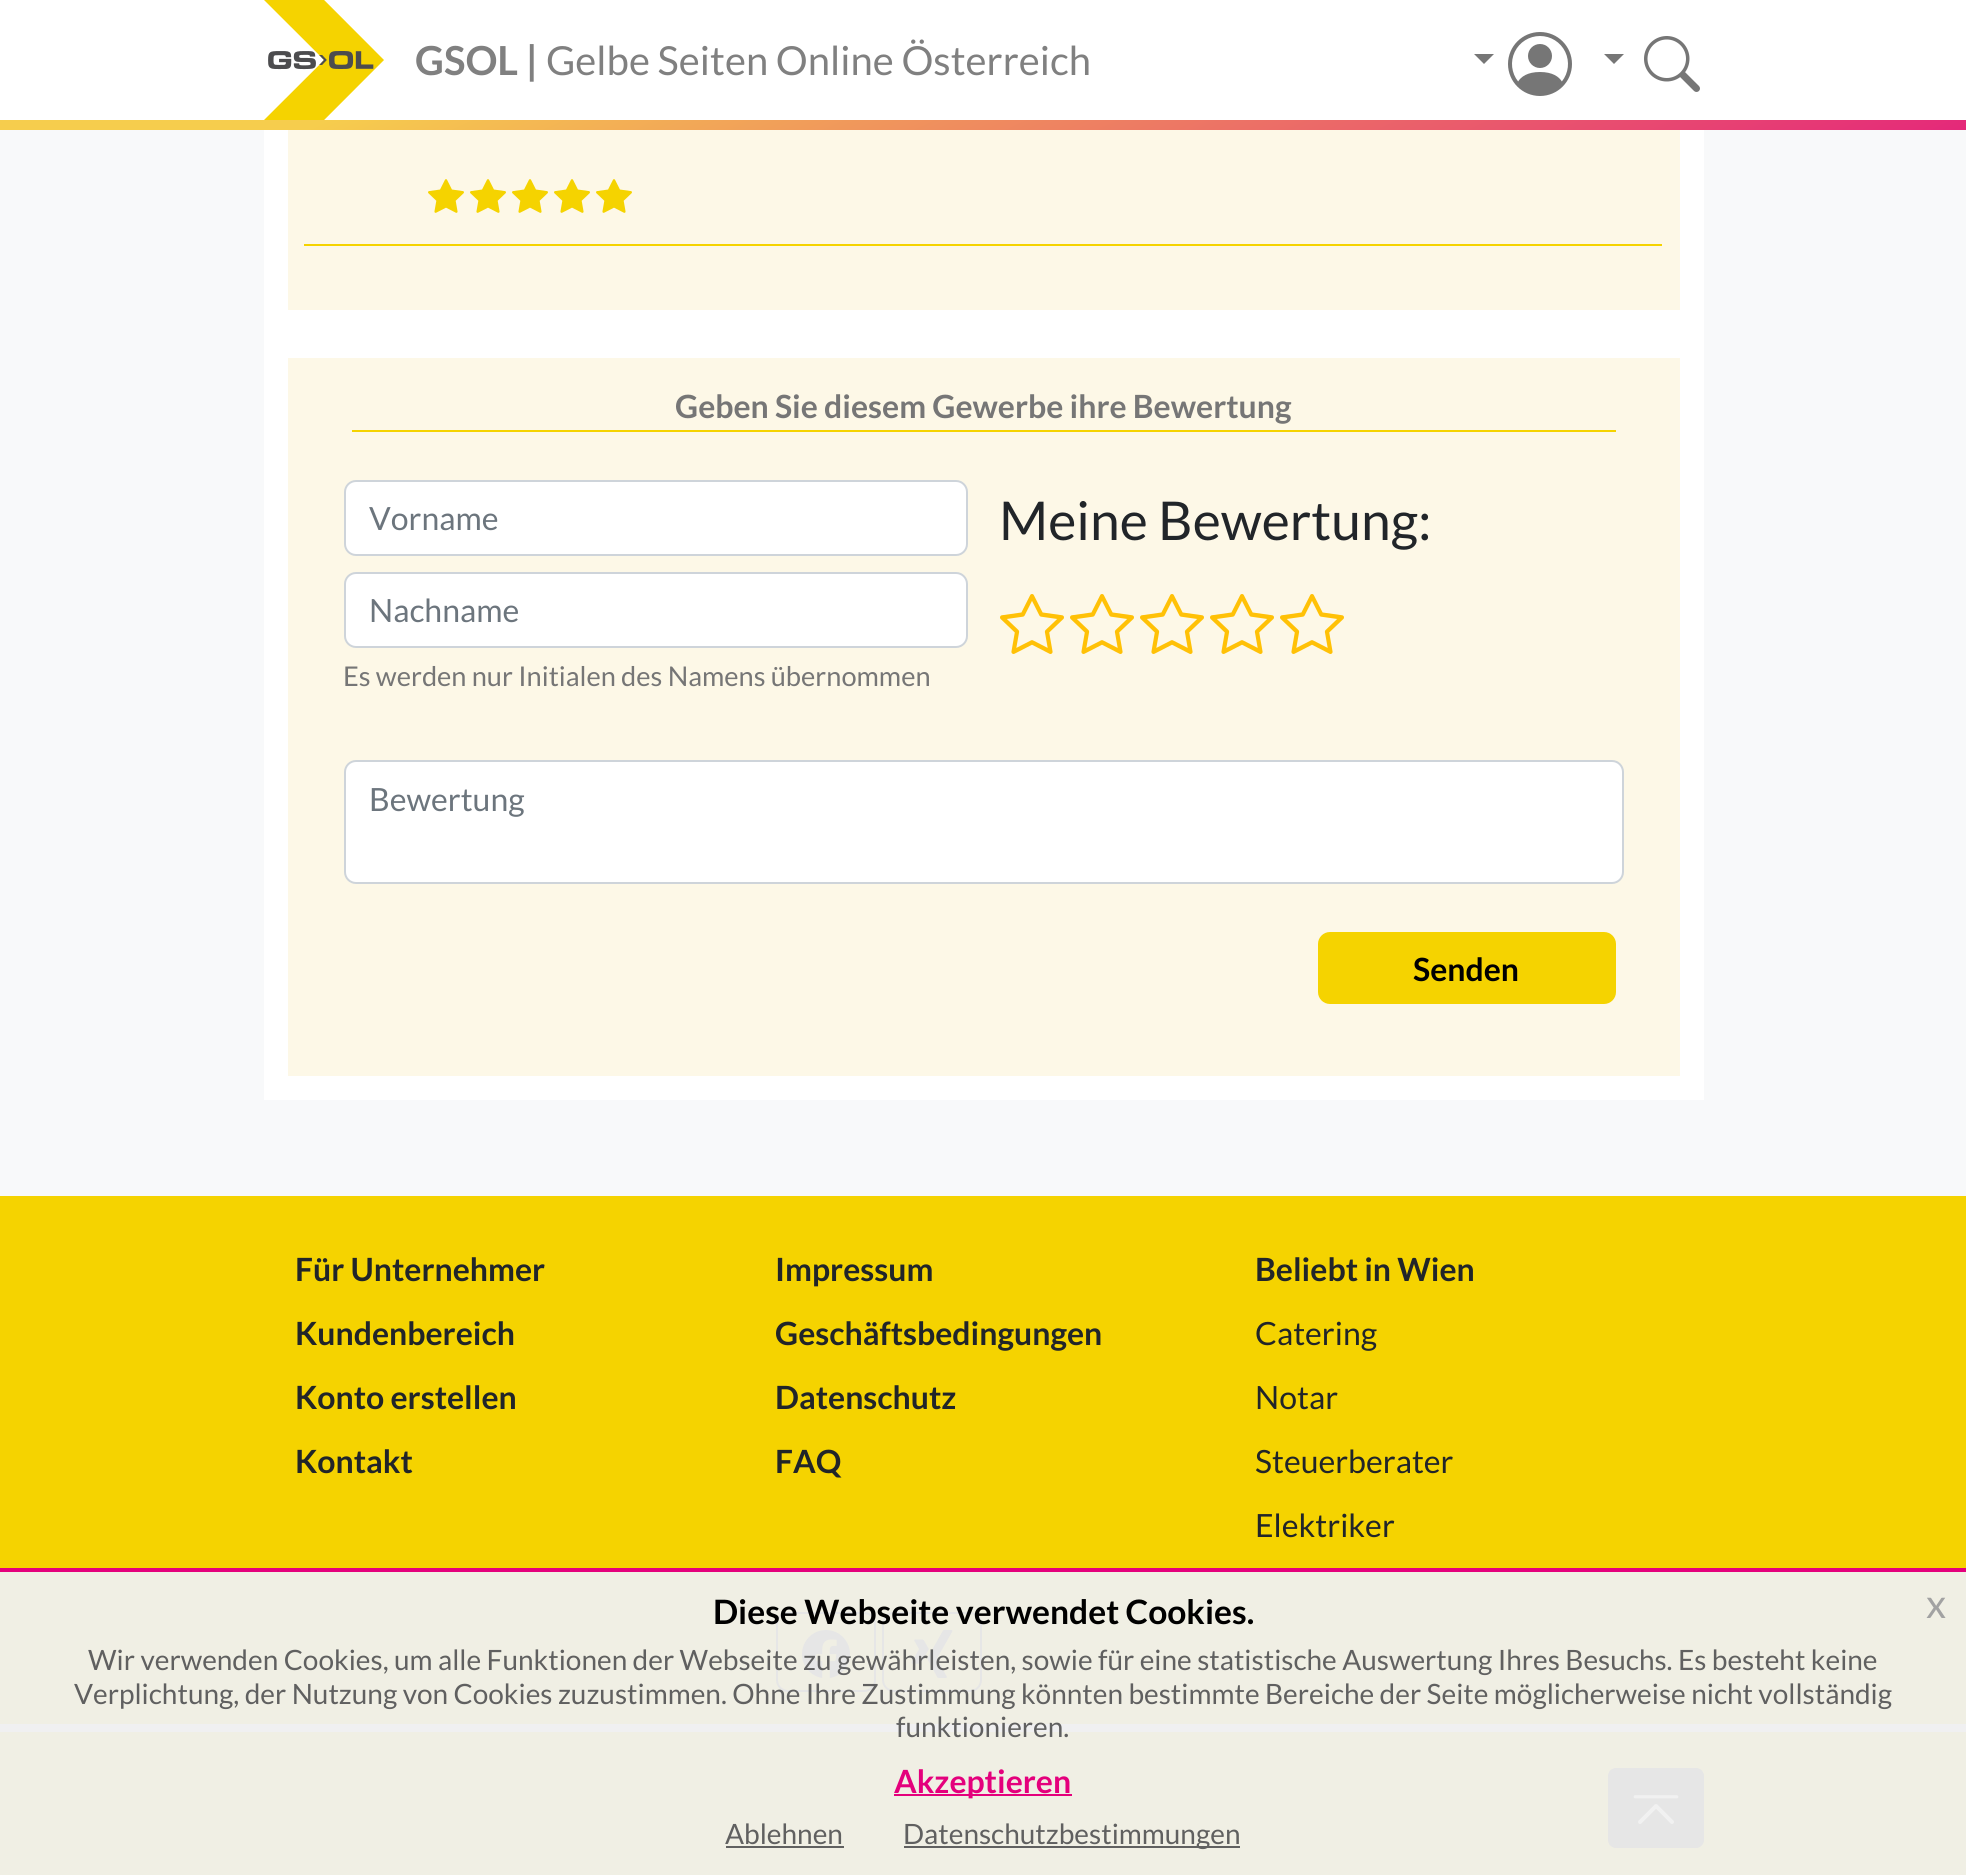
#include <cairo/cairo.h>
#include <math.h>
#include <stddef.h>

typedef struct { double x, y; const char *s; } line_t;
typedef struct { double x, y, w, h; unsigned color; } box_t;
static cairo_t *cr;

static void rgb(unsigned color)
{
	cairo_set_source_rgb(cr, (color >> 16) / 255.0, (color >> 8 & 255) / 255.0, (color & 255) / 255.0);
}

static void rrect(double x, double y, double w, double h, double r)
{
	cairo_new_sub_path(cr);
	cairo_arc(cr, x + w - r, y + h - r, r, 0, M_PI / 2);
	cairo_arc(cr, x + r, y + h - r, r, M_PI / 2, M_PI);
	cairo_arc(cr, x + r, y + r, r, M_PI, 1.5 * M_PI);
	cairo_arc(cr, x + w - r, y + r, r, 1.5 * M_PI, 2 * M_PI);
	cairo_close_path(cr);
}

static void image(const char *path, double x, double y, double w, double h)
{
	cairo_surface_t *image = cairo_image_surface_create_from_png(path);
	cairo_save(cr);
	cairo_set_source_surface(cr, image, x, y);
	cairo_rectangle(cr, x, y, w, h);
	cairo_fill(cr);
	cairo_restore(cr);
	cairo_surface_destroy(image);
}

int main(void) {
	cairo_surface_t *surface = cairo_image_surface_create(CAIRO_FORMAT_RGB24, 1966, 1875);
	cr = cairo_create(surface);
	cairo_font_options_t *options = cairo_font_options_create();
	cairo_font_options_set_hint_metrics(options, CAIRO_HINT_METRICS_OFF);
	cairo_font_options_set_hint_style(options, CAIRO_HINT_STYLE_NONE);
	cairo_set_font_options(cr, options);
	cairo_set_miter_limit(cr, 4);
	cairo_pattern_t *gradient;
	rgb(0xf8f9fa);
	cairo_paint(cr);
	rgb(0xffffff);
	cairo_rectangle(cr, 0, 0, 1966, 120);
	cairo_fill(cr);
	image("img/1.png", 264, 0, 120, 120);
	rgb(0x767676);
	cairo_new_path(cr);
	cairo_move_to(cr, 1474, 54);
	cairo_line_to(cr, 1494, 54);
	cairo_line_to(cr, 1484, 64);
	cairo_close_path(cr);
	cairo_fill(cr);
	image("img/2.png", 1508, 32, 64, 64);
	cairo_new_path(cr);
	cairo_move_to(cr, 1604, 54);
	cairo_line_to(cr, 1624, 54);
	cairo_line_to(cr, 1614, 64);
	cairo_close_path(cr);
	cairo_fill(cr);
	image("img/3.png", 1644, 36, 56, 56);
	gradient = cairo_pattern_create_linear(806, -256, 1196, 582);
	cairo_pattern_add_color_stop_rgba(gradient, 0.15, 0.965, 0.804, 0.302, 1);
	cairo_pattern_add_color_stop_rgba(gradient, 1, 0.886, 0.078, 0.498, 1);
	cairo_set_source(cr, gradient);
	cairo_pattern_destroy(gradient);
	cairo_rectangle(cr, 0, 120, 1966, 10);
	cairo_fill(cr);
	{
		static const box_t items[] = {
			{0, 1724, 1966, 8, 0xf0f0f1},
			{264, 130, 1440, 970, 0xffffff},
			{288, 130, 1392, 180, 0xfdf8e7},
		};
		for (size_t i = 0; i < sizeof items / sizeof *items; i++) {
			rgb(items[i].color);
			cairo_rectangle(cr, items[i].x, items[i].y, items[i].w, items[i].h);
			cairo_fill(cr);
		}
	}
	image("img/4.png", 428, 179, 36, 34);
	image("img/4.png", 470, 179, 36, 34);
	image("img/4.png", 512, 179, 36, 34);
	image("img/4.png", 554, 179, 36, 34);
	image("img/4.png", 596, 179, 36, 34);
	{
		static const box_t items[] = {
			{304, 244, 1358, 2, 0xf5d300},
			{288, 358, 1392, 718, 0xfdf8e7},
			{352, 430, 1264, 2, 0xf5d300},
		};
		for (size_t i = 0; i < sizeof items / sizeof *items; i++) {
			rgb(items[i].color);
			cairo_rectangle(cr, items[i].x, items[i].y, items[i].w, items[i].h);
			cairo_fill(cr);
		}
	}
	rgb(0xffffff);
	rrect(345, 481, 622, 74, 11);
	cairo_fill_preserve(cr);
	rgb(0xced4da);
	cairo_stroke(cr);
	rgb(0xffffff);
	rrect(345, 573, 622, 74, 11);
	cairo_fill_preserve(cr);
	rgb(0xced4da);
	cairo_stroke(cr);
	image("img/5.png", 1000, 594, 64, 60);
	image("img/5.png", 1070, 594, 64, 60);
	image("img/5.png", 1140, 594, 64, 60);
	image("img/5.png", 1210, 594, 64, 60);
	image("img/5.png", 1280, 594, 64, 60);
	rgb(0xffffff);
	rrect(345, 761, 1278, 122, 11);
	cairo_fill_preserve(cr);
	rgb(0xced4da);
	cairo_stroke(cr);
	rgb(0xf5d300);
	rrect(1318, 932, 298, 72, 12);
	cairo_fill(cr);
	cairo_rectangle(cr, 0, 1196, 1966, 372);
	cairo_fill(cr);
	rgb(0xf0efe4);
	cairo_rectangle(cr, 0, 1572, 1966, 152);
	cairo_fill(cr);
	rrect(777, 1613, 98, 78, 11);
	rgb(0xe6e6e6);
	cairo_stroke(cr);
	image("img/6.png", 802, 1630, 48, 48);
	rrect(883, 1613, 98, 78, 11);
	cairo_stroke(cr);
	image("img/7.png", 911, 1630, 42, 48);
	rgb(0xf0efe4);
	cairo_rectangle(cr, 0, 1732, 1966, 143);
	cairo_fill(cr);
	rgb(0xe6e6e6);
	rrect(1608, 1768, 96, 80, 8);
	cairo_fill(cr);
	image("img/8.png", 1633, 1795, 46, 29);
	{
		static const box_t items[] = {
			{0, 1568, 1966, 4, 0xe4007c},
			{894, 1794, 178, 2, 0xe4007c},
			{726, 1846, 118, 2, 0x606060},
			{904, 1846, 336, 2, 0x606060},
		};
		for (size_t i = 0; i < sizeof items / sizeof *items; i++) {
			rgb(items[i].color);
			cairo_rectangle(cr, items[i].x, items[i].y, items[i].w, items[i].h);
			cairo_fill(cr);
		}
	}
	cairo_select_font_face(cr, "Lato", CAIRO_FONT_SLANT_NORMAL, CAIRO_FONT_WEIGHT_BOLD);
	cairo_set_font_size(cr, 40);
	rgb(0x808080);
	cairo_move_to(cr, 415, 75);
	cairo_show_text(cr, "GSOL |");
	cairo_select_font_face(cr, "Lato", CAIRO_FONT_SLANT_NORMAL, CAIRO_FONT_WEIGHT_NORMAL);
	cairo_move_to(cr, 546, 75);
	cairo_show_text(cr, "Gelbe Seiten Online Österreich");
	cairo_select_font_face(cr, "Lato", CAIRO_FONT_SLANT_NORMAL, CAIRO_FONT_WEIGHT_BOLD);
	cairo_set_font_size(cr, 32);
	rgb(0x767676);
	cairo_move_to(cr, 675, 418);
	cairo_show_text(cr, "Geben Sie diesem Gewerbe ihre Bewertung");
	cairo_select_font_face(cr, "Lato", CAIRO_FONT_SLANT_NORMAL, CAIRO_FONT_WEIGHT_NORMAL);
	rgb(0x6c757d);
	cairo_move_to(cr, 369, 530);
	cairo_show_text(cr, "Vorname");
	cairo_move_to(cr, 369, 622);
	cairo_show_text(cr, "Nachname");
	cairo_set_font_size(cr, 27.2);
	rgb(0x767676);
	cairo_move_to(cr, 343, 686);
	cairo_show_text(cr, "Es werden nur Initialen des Namens übernommen");
	cairo_set_font_size(cr, 53.5);
	rgb(0x212529);
	cairo_move_to(cr, 999, 540);
	cairo_show_text(cr, "Meine Bewertung:");
	cairo_set_font_size(cr, 32);
	rgb(0x6c757d);
	cairo_move_to(cr, 369, 811);
	cairo_show_text(cr, "Bewertung");
	cairo_select_font_face(cr, "Lato", CAIRO_FONT_SLANT_NORMAL, CAIRO_FONT_WEIGHT_BOLD);
	rgb(0x000000);
	cairo_move_to(cr, 1413, 981);
	cairo_show_text(cr, "Senden");
	rgb(0x212529);
	{
		static const line_t items[] = {
			{295, 1281, "Für Unternehmer"},
			{295, 1345, "Kundenbereich"},
			{295, 1409, "Konto erstellen"},
			{295, 1473, "Kontakt"},
			{775, 1281, "Impressum"},
			{775, 1345, "Geschäftsbedingungen"},
			{775, 1409, "Datenschutz"},
			{775, 1473, "FAQ"},
			{1255, 1281, "Beliebt in Wien"},
		};
		for (size_t i = 0; i < sizeof items / sizeof *items; i++) {
			cairo_move_to(cr, items[i].x, items[i].y);
			cairo_show_text(cr, items[i].s);
		}
	}
	cairo_select_font_face(cr, "Lato", CAIRO_FONT_SLANT_NORMAL, CAIRO_FONT_WEIGHT_NORMAL);
	{
		static const line_t items[] = {
			{1255, 1345, "Catering"},
			{1255, 1409, "Notar"},
			{1255, 1473, "Steuerberater"},
			{1255, 1537, "Elektriker"},
		};
		for (size_t i = 0; i < sizeof items / sizeof *items; i++) {
			cairo_move_to(cr, items[i].x, items[i].y);
			cairo_show_text(cr, items[i].s);
		}
	}
	cairo_select_font_face(cr, "Lato", CAIRO_FONT_SLANT_NORMAL, CAIRO_FONT_WEIGHT_BOLD);
	cairo_set_font_size(cr, 33.6);
	rgb(0x000000);
	cairo_move_to(cr, 713, 1624);
	cairo_show_text(cr, "Diese Webseite verwendet Cookies.");
	cairo_select_font_face(cr, "Lato", CAIRO_FONT_SLANT_NORMAL, CAIRO_FONT_WEIGHT_NORMAL);
	cairo_set_font_size(cr, 40);
	rgb(0xa2a2a2);
	cairo_move_to(cr, 1926, 1618);
	cairo_show_text(cr, "x");
	cairo_set_font_size(cr, 28);
	rgb(0x606060);
	{
		static const line_t items[] = {
			{88, 1670, "Wir verwenden Cookies, um alle Funktionen der Webseite zu gewährleisten, sowie für eine statistische Auswertung Ihres Besuchs. Es besteht keine"},
			{74, 1704, "Verplichtung, der Nutzung von Cookies zuzustimmen. Ohne Ihre Zustimmung könnten bestimmte Bereiche der Seite möglicherweise nicht vollständig"},
			{896, 1737, "funktionieren."},
		};
		for (size_t i = 0; i < sizeof items / sizeof *items; i++) {
			cairo_move_to(cr, items[i].x, items[i].y);
			cairo_show_text(cr, items[i].s);
		}
	}
	cairo_select_font_face(cr, "Lato", CAIRO_FONT_SLANT_NORMAL, CAIRO_FONT_WEIGHT_BOLD);
	cairo_set_font_size(cr, 32);
	rgb(0xe4007c);
	cairo_move_to(cr, 894, 1793);
	cairo_show_text(cr, "Akzeptieren");
	cairo_select_font_face(cr, "Lato", CAIRO_FONT_SLANT_NORMAL, CAIRO_FONT_WEIGHT_NORMAL);
	cairo_set_font_size(cr, 28);
	rgb(0x606060);
	cairo_move_to(cr, 725, 1844);
	cairo_show_text(cr, "Ablehnen");
	cairo_move_to(cr, 903, 1844);
	cairo_show_text(cr, "Datenschutzbestimmungen");
	cairo_surface_write_to_png(surface, "page.png");
	cairo_font_options_destroy(options);
	cairo_destroy(cr);
	cairo_surface_destroy(surface);
	return 0;
}
